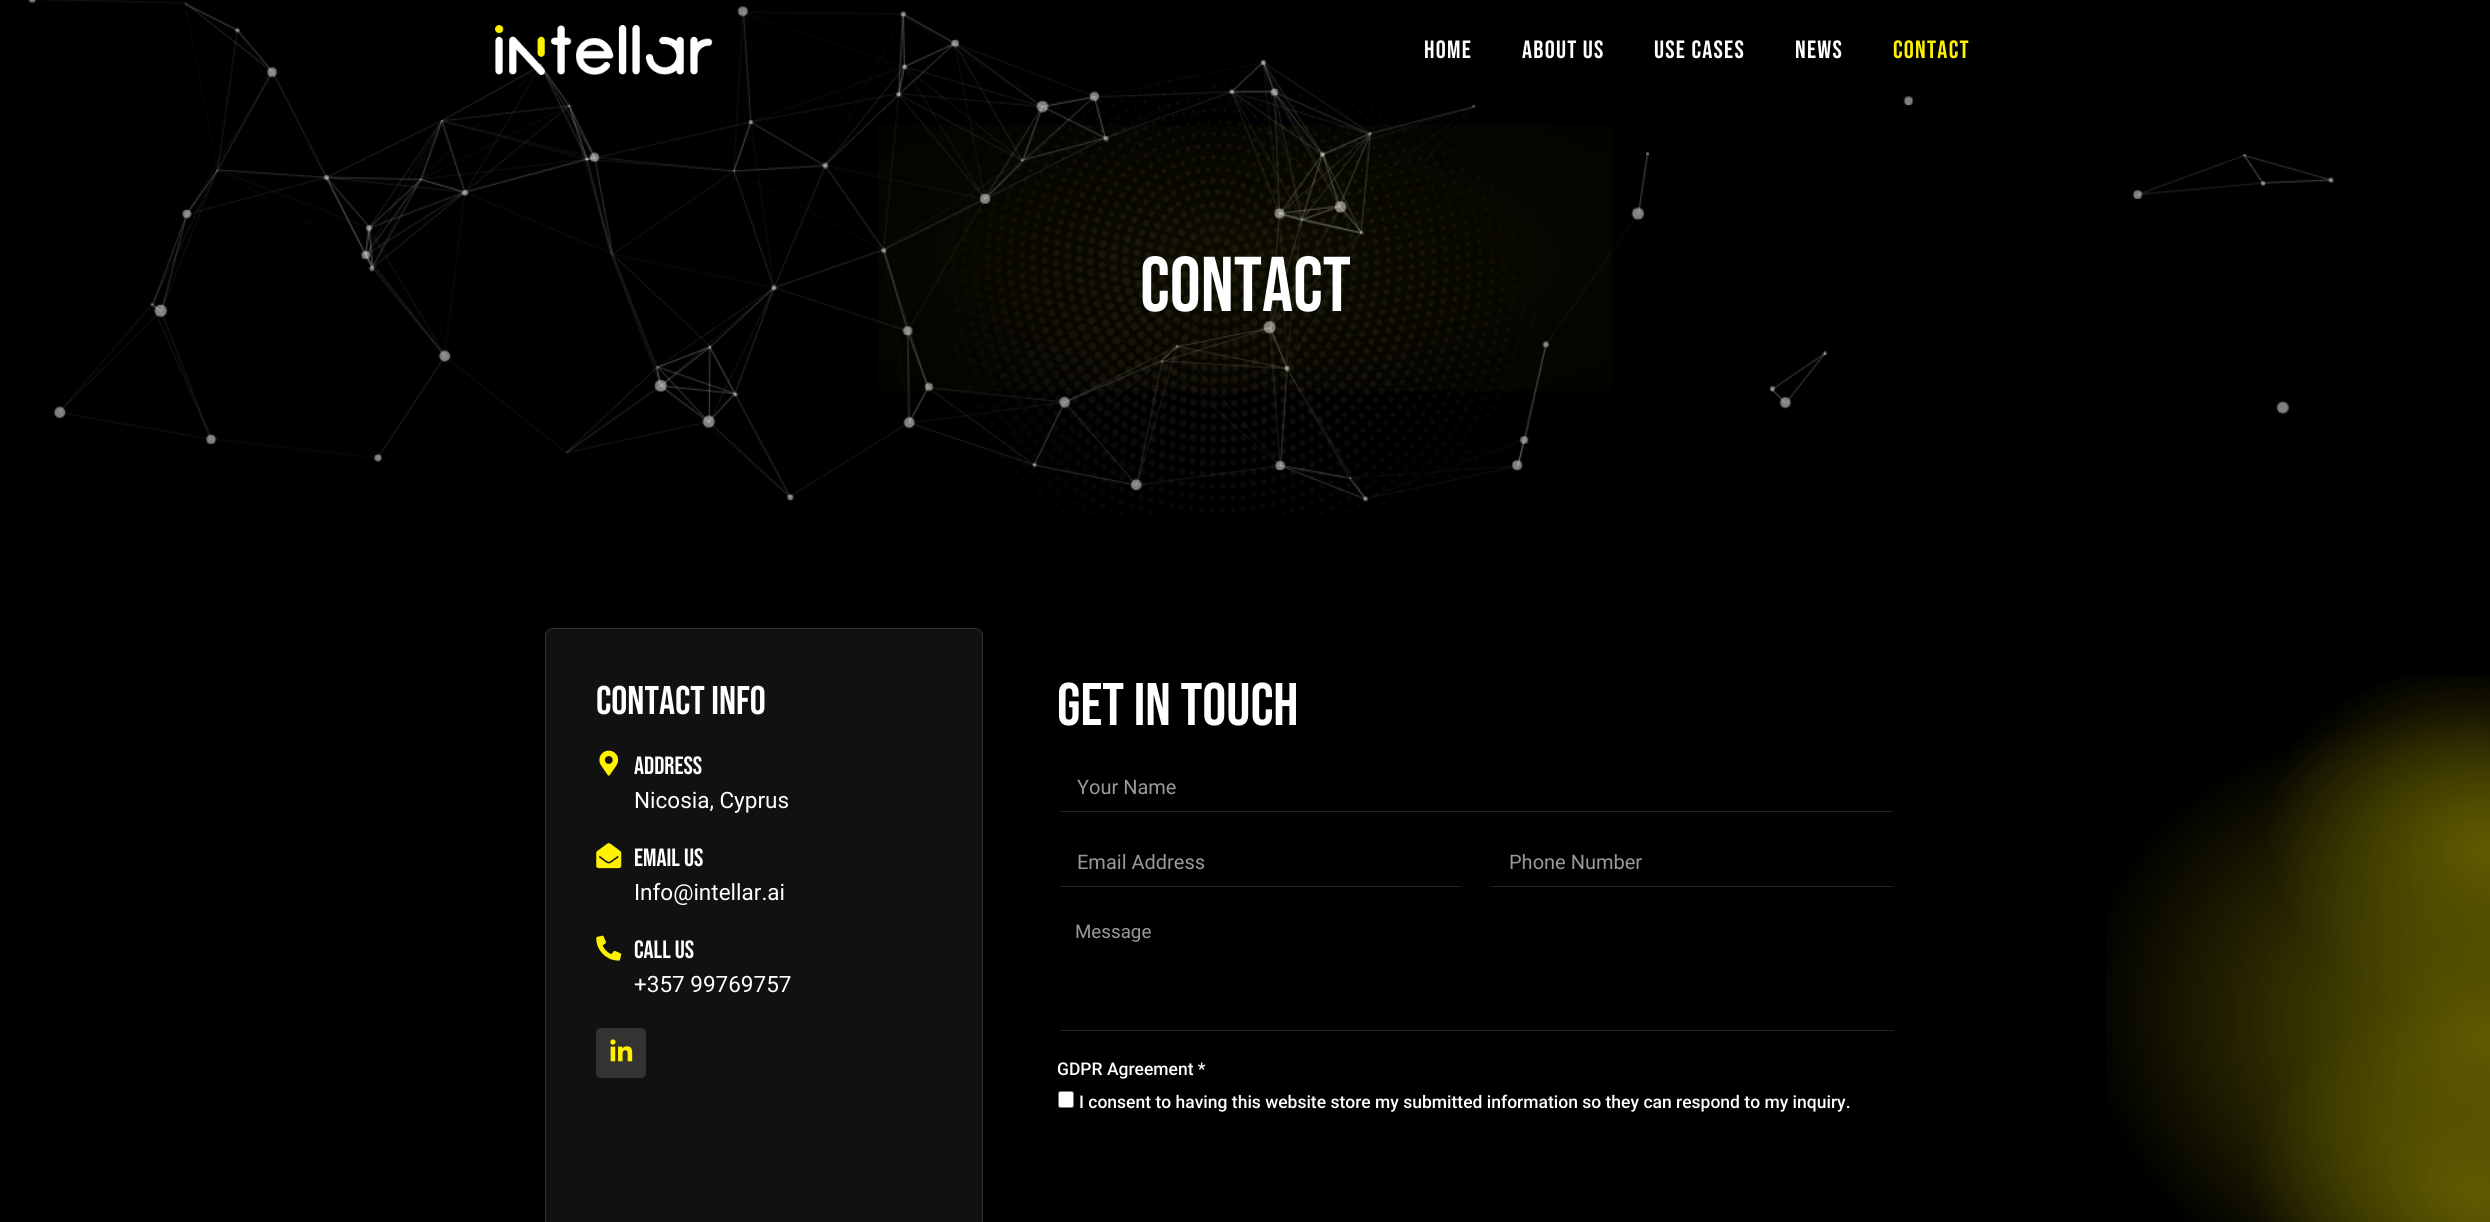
#include <cairo/cairo.h>
#include <math.h>
#include <stddef.h>

typedef struct { double x, y; const char *s; } line_t;
typedef struct { double x, y, w, h; unsigned color; } box_t;
static cairo_t *cr;

static void rgb(unsigned color)
{
	cairo_set_source_rgb(cr, (color >> 16) / 255.0, (color >> 8 & 255) / 255.0, (color & 255) / 255.0);
}

static void tracked(double x, double y, const char *s, double letter, double word)
{
	cairo_move_to(cr, x, y);
	while (*s) {
		char ch[5] = {0};
		int n = 0;
		do ch[n++] = *s++; while ((*s & 0xC0) == 0x80);
		cairo_show_text(cr, ch);
		cairo_rel_move_to(cr, letter + word * (*ch == ' '), 0);
	}
}

static void rrect(double x, double y, double w, double h, double r)
{
	cairo_new_sub_path(cr);
	cairo_arc(cr, x + w - r, y + h - r, r, 0, M_PI / 2);
	cairo_arc(cr, x + r, y + h - r, r, M_PI / 2, M_PI);
	cairo_arc(cr, x + r, y + r, r, M_PI, 1.5 * M_PI);
	cairo_arc(cr, x + w - r, y + r, r, 1.5 * M_PI, 2 * M_PI);
	cairo_close_path(cr);
}

static void image(const char *path, double x, double y, double w, double h)
{
	cairo_surface_t *image = cairo_image_surface_create_from_png(path);
	cairo_save(cr);
	cairo_set_source_surface(cr, image, x, y);
	cairo_rectangle(cr, x, y, w, h);
	cairo_fill(cr);
	cairo_restore(cr);
	cairo_surface_destroy(image);
}

int main(void) {
	cairo_surface_t *surface = cairo_image_surface_create(CAIRO_FORMAT_RGB24, 2490, 1222);
	cr = cairo_create(surface);
	cairo_font_options_t *options = cairo_font_options_create();
	cairo_font_options_set_hint_metrics(options, CAIRO_HINT_METRICS_OFF);
	cairo_font_options_set_hint_style(options, CAIRO_HINT_STYLE_NONE);
	cairo_set_font_options(cr, options);
	cairo_set_miter_limit(cr, 4);
	cairo_pattern_t *gradient;
	rgb(0x000000);
	cairo_paint(cr);
	image("img/2.png", 28, 0, 2306, 502);
	image("img/1.png", 495, 25, 218, 50);
	image("img/3.png", 948, 23, 590, 492);
	gradient = cairo_pattern_create_radial(0, 0, 0, 0, 0, 1);
	cairo_pattern_set_matrix(gradient, &(cairo_matrix_t){1.0 / 1008, 0, 0, 1.0 / 364, -1.0 * 1245 / 1008, -1.0 * 258 / 364});
	cairo_pattern_add_color_stop_rgba(gradient, 0, 1, 0.949, 0, 0.05);
	cairo_pattern_add_color_stop_rgba(gradient, 0.64, 1, 0.949, 0, 0);
	cairo_set_source(cr, gradient);
	cairo_pattern_destroy(gradient);
	cairo_rectangle(cr, 878, 125, 734, 266);
	cairo_fill(cr);
	image("img/4.png", 2106, 676, 384, 546);
	rgb(0x111111);
	rrect(545.5, 628.5, 437, 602, 7.5);
	cairo_fill_preserve(cr);
	rgb(0x333333);
	cairo_set_line_width(cr, 1);
	cairo_stroke(cr);
	image("img/5.png", 599, 750, 20, 26);
	image("img/6.png", 596, 843, 26, 26);
	image("img/7.png", 596, 935, 26, 26);
	rrect(596, 1028, 50, 50, 5);
	cairo_fill(cr);
	image("img/8.png", 610, 1039, 23, 23);
	{
		static const box_t items[] = {
			{1060, 811, 833, 1, 0x242222},
			{1060, 886, 401, 1, 0x242222},
			{1491, 886, 402, 1, 0x242222},
			{1060, 1030, 834, 1, 0x242222},
		};
		for (size_t i = 0; i < sizeof items / sizeof *items; i++) {
			rgb(items[i].color);
			cairo_rectangle(cr, items[i].x, items[i].y, items[i].w, items[i].h);
			cairo_fill(cr);
		}
	}
	rgb(0xffffff);
	rrect(1058.5, 1091.5, 15, 16, 2);
	cairo_fill_preserve(cr);
	rgb(0x767676);
	cairo_stroke(cr);
	cairo_select_font_face(cr, "Bebas Neue", CAIRO_FONT_SLANT_NORMAL, CAIRO_FONT_WEIGHT_NORMAL);
	cairo_set_font_size(cr, 25);
	rgb(0xffffff);
	{
		static const line_t items[] = {
			{1424, 58, "Home"},
			{1522, 58, "About Us"},
			{1654, 58, "Use Cases"},
			{1795, 58, "News"},
		};
		for (size_t i = 0; i < sizeof items / sizeof *items; i++) {
			tracked(items[i].x, items[i].y, items[i].s, 1.25, 0);
		}
	}
	rgb(0xfff200);
	tracked(1893, 58, "Contact", 1.25, 0);
	cairo_set_font_size(cr, 77.5);
	rgb(0xffffff);
	cairo_move_to(cr, 1140, 311);
	cairo_show_text(cr, "Contact");
	cairo_set_font_size(cr, 40);
	cairo_move_to(cr, 596, 714);
	cairo_show_text(cr, "Contact Info");
	cairo_set_font_size(cr, 25);
	cairo_move_to(cr, 634, 774);
	cairo_show_text(cr, "Address");
	cairo_select_font_face(cr, "Roboto", CAIRO_FONT_SLANT_NORMAL, CAIRO_FONT_WEIGHT_NORMAL);
	cairo_set_font_size(cr, 22.5);
	cairo_move_to(cr, 634, 808);
	cairo_show_text(cr, "Nicosia, Cyprus");
	cairo_select_font_face(cr, "Bebas Neue", CAIRO_FONT_SLANT_NORMAL, CAIRO_FONT_WEIGHT_NORMAL);
	cairo_set_font_size(cr, 25);
	cairo_move_to(cr, 634, 866);
	cairo_show_text(cr, "Email Us");
	cairo_select_font_face(cr, "Roboto", CAIRO_FONT_SLANT_NORMAL, CAIRO_FONT_WEIGHT_NORMAL);
	cairo_set_font_size(cr, 22.5);
	cairo_move_to(cr, 634, 900);
	cairo_show_text(cr, "Info@intellar.ai");
	cairo_select_font_face(cr, "Bebas Neue", CAIRO_FONT_SLANT_NORMAL, CAIRO_FONT_WEIGHT_NORMAL);
	cairo_set_font_size(cr, 25);
	cairo_move_to(cr, 634, 958);
	cairo_show_text(cr, "Call Us");
	cairo_select_font_face(cr, "Roboto", CAIRO_FONT_SLANT_NORMAL, CAIRO_FONT_WEIGHT_NORMAL);
	cairo_set_font_size(cr, 22.5);
	cairo_move_to(cr, 634, 992);
	cairo_show_text(cr, "+357 99769757");
	cairo_select_font_face(cr, "Bebas Neue", CAIRO_FONT_SLANT_NORMAL, CAIRO_FONT_WEIGHT_NORMAL);
	cairo_set_font_size(cr, 60);
	cairo_move_to(cr, 1057, 725);
	cairo_show_text(cr, "Get in touch");
	cairo_select_font_face(cr, "Roboto", CAIRO_FONT_SLANT_NORMAL, CAIRO_FONT_WEIGHT_NORMAL);
	cairo_set_font_size(cr, 20);
	rgb(0x999999);
	{
		static const line_t items[] = {
			{1077, 794, "Your Name"},
			{1077, 869, "Email Address"},
			{1509, 869, "Phone Number"},
		};
		for (size_t i = 0; i < sizeof items / sizeof *items; i++) {
			cairo_move_to(cr, items[i].x, items[i].y);
			cairo_show_text(cr, items[i].s);
		}
	}
	cairo_set_font_size(cr, 18.75);
	cairo_move_to(cr, 1075, 938);
	cairo_show_text(cr, "Message");
	cairo_select_font_face(cr, "Roboto Medium", CAIRO_FONT_SLANT_NORMAL, CAIRO_FONT_WEIGHT_NORMAL);
	cairo_set_font_size(cr, 17.5);
	rgb(0xffffff);
	cairo_move_to(cr, 1057, 1075);
	cairo_show_text(cr, "GDPR Agreement *");
	cairo_move_to(cr, 1079, 1108);
	cairo_show_text(cr, "I consent to having this website store my submitted information so they can respond to my inquiry.");
	cairo_surface_write_to_png(surface, "page.png");
	cairo_font_options_destroy(options);
	cairo_destroy(cr);
	cairo_surface_destroy(surface);
	return 0;
}
